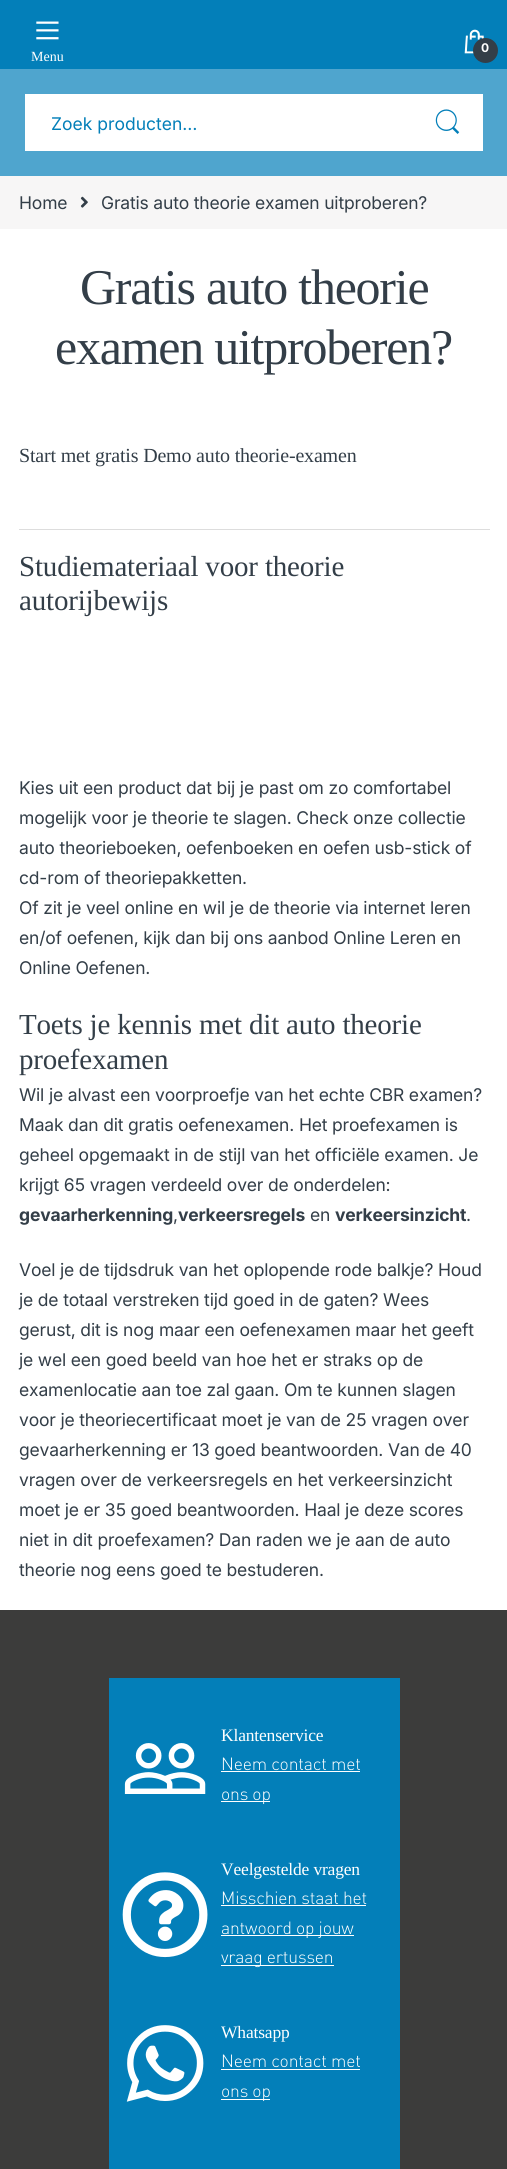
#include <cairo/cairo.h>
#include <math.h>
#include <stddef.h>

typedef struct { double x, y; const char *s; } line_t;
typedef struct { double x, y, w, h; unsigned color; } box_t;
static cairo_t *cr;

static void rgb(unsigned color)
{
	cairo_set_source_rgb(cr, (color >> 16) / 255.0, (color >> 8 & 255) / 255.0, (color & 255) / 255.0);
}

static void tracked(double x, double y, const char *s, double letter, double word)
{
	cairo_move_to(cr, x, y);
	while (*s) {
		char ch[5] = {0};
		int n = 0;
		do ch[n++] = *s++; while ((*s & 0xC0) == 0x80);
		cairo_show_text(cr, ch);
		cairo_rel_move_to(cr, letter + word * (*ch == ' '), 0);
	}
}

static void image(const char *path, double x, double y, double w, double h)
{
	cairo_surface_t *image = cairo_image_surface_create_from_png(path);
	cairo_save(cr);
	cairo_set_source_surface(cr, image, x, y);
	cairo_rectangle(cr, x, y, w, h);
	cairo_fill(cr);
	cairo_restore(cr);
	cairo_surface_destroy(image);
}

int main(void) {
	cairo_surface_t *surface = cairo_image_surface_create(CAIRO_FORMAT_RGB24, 507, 2169);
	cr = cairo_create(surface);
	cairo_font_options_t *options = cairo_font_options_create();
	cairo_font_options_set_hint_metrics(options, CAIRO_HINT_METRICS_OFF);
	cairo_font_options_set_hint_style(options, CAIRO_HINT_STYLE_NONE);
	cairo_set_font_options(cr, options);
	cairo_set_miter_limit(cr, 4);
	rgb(0xffffff);
	cairo_paint(cr);
	rgb(0x037fb9);
	cairo_rectangle(cr, 0, 0, 507, 69);
	cairo_fill(cr);
	image("img/1.png", 464, 29, 20, 25);
	rgb(0x333e48);
	cairo_arc(cr, 485.5, 50.5, 12.5, 0, 2 * M_PI);
	cairo_fill(cr);
	image("img/2.png", 36, 21, 23, 19);
	cairo_rectangle(cr, 12.5, 81.5, 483, 82);
	rgb(0x4fa5ce);
	cairo_set_line_width(cr, 25);
	cairo_stroke(cr);
	image("img/3.png", 435, 109, 25, 25);
	rgb(0xf7f6f6);
	cairo_rectangle(cr, 0, 176, 507, 53);
	cairo_fill(cr);
	image("img/4.png", 80, 196, 8, 12);
	{
		static const box_t items[] = {
			{19, 529, 471, 1, 0xdddddd},
			{0, 1610, 507, 559, 0x3c3c3b},
			{109, 1678, 291, 491, 0x037fb9},
		};
		for (size_t i = 0; i < sizeof items / sizeof *items; i++) {
			rgb(items[i].color);
			cairo_rectangle(cr, items[i].x, items[i].y, items[i].w, items[i].h);
			cairo_fill(cr);
		}
	}
	image("img/5.png", 124, 1743, 82, 51);
	rgb(0xffffff);
	cairo_rectangle(cr, 221, 1771, 139, 1);
	cairo_fill(cr);
	cairo_rectangle(cr, 221, 1801, 49, 1);
	cairo_fill(cr);
	image("img/6.png", 122, 1872, 86, 86);
	{
		static const box_t items[] = {
			{221, 1905, 145, 1, 0xffffff},
			{221, 1935, 133, 1, 0xffffff},
			{221, 1965, 113, 1, 0xffffff},
		};
		for (size_t i = 0; i < sizeof items / sizeof *items; i++) {
			rgb(items[i].color);
			cairo_rectangle(cr, items[i].x, items[i].y, items[i].w, items[i].h);
			cairo_fill(cr);
		}
	}
	image("img/7.png", 126, 2025, 78, 77);
	cairo_rectangle(cr, 221, 2069, 139, 1);
	cairo_fill(cr);
	cairo_rectangle(cr, 221, 2099, 49, 1);
	cairo_fill(cr);
	cairo_select_font_face(cr, "Inter", CAIRO_FONT_SLANT_NORMAL, CAIRO_FONT_WEIGHT_BOLD);
	cairo_set_font_size(cr, 12);
	tracked(481, 52, "0", -0.18, 0);
	cairo_select_font_face(cr, "Liberation Serif", CAIRO_FONT_SLANT_NORMAL, CAIRO_FONT_WEIGHT_NORMAL);
	cairo_set_font_size(cr, 14);
	cairo_move_to(cr, 31, 61);
	cairo_show_text(cr, "Menu");
	cairo_select_font_face(cr, "Inter", CAIRO_FONT_SLANT_NORMAL, CAIRO_FONT_WEIGHT_NORMAL);
	cairo_set_font_size(cr, 17.5);
	rgb(0x037fb9);
	cairo_move_to(cr, 51, 130);
	cairo_show_text(cr, "Zoek producten…");
	rgb(0x333e48);
	tracked(19, 209, "Home", -0.18, 0);
	tracked(101, 209, "Gratis auto theorie examen uitproberen?", -0.18, 0);
	cairo_select_font_face(cr, "Liberation Serif", CAIRO_FONT_SLANT_NORMAL, CAIRO_FONT_WEIGHT_NORMAL);
	cairo_set_font_size(cr, 50);
	tracked(80, 304, "Gratis auto theorie", -1.25, 0);
	tracked(55, 364, "examen uitproberen?", -1.25, 0);
	cairo_set_font_size(cr, 20);
	tracked(19, 462, "Start met gratis Demo auto theorie-examen", -0.18, 0);
	cairo_set_font_size(cr, 29);
	tracked(19, 576, "Studiemateriaal voor theorie", -0.18, 0);
	tracked(19, 610, "autorijbewijs", -0.18, 0);
	cairo_select_font_face(cr, "Inter", CAIRO_FONT_SLANT_NORMAL, CAIRO_FONT_WEIGHT_NORMAL);
	cairo_set_font_size(cr, 17.5);
	{
		static const line_t items[] = {
			{19, 794, "Kies uit een product dat bij je past om zo comfortabel"},
			{19, 824, "mogelijk voor je theorie te slagen. Check onze collectie"},
			{19, 854, "auto theorieboeken, oefenboeken en oefen usb-stick of"},
			{19, 884, "cd-rom of theoriepakketten."},
			{19, 914, "Of zit je veel online en wil je de theorie via internet leren"},
			{19, 944, "en/of oefenen, kijk dan bij ons aanbod Online Leren en"},
			{19, 974, "Online Oefenen."},
		};
		for (size_t i = 0; i < sizeof items / sizeof *items; i++) {
			tracked(items[i].x, items[i].y, items[i].s, -0.18, 0);
		}
	}
	cairo_select_font_face(cr, "Liberation Serif", CAIRO_FONT_SLANT_NORMAL, CAIRO_FONT_WEIGHT_NORMAL);
	cairo_set_font_size(cr, 29);
	tracked(19, 1034, "Toets je kennis met dit auto theorie", -0.18, 0);
	tracked(19, 1069, "proefexamen", -0.18, 0);
	cairo_select_font_face(cr, "Inter", CAIRO_FONT_SLANT_NORMAL, CAIRO_FONT_WEIGHT_NORMAL);
	cairo_set_font_size(cr, 17.5);
	{
		static const line_t items[] = {
			{19, 1101, "Wil je alvast een voorproefje van het echte CBR examen?"},
			{19, 1131, "Maak dan dit gratis oefenexamen. Het proefexamen is"},
			{19, 1161, "geheel opgemaakt in de stijl van het officiële examen. Je"},
			{19, 1191, "krijgt 65 vragen verdeeld over de onderdelen:"},
		};
		for (size_t i = 0; i < sizeof items / sizeof *items; i++) {
			tracked(items[i].x, items[i].y, items[i].s, -0.18, 0);
		}
	}
	cairo_select_font_face(cr, "Inter", CAIRO_FONT_SLANT_NORMAL, CAIRO_FONT_WEIGHT_BOLD);
	tracked(19, 1221, "gevaarherkenning", -0.18, 0);
	cairo_select_font_face(cr, "Inter", CAIRO_FONT_SLANT_NORMAL, CAIRO_FONT_WEIGHT_NORMAL);
	tracked(173, 1221, ",", -0.18, 0);
	cairo_select_font_face(cr, "Inter", CAIRO_FONT_SLANT_NORMAL, CAIRO_FONT_WEIGHT_BOLD);
	tracked(178, 1221, "verkeersregels", -0.18, 0);
	cairo_select_font_face(cr, "Inter", CAIRO_FONT_SLANT_NORMAL, CAIRO_FONT_WEIGHT_NORMAL);
	tracked(310, 1221, "en", -0.18, 0);
	cairo_select_font_face(cr, "Inter", CAIRO_FONT_SLANT_NORMAL, CAIRO_FONT_WEIGHT_BOLD);
	tracked(335, 1221, "verkeersinzicht", -0.18, 0);
	cairo_select_font_face(cr, "Inter", CAIRO_FONT_SLANT_NORMAL, CAIRO_FONT_WEIGHT_NORMAL);
	{
		static const line_t items[] = {
			{466, 1221, "."},
			{19, 1276, "Voel je de tijdsdruk van het oplopende rode balkje? Houd"},
			{19, 1306, "je de totaal verstreken tijd goed in de gaten? Wees"},
			{19, 1336, "gerust, dit is nog maar een oefenexamen maar het geeft"},
			{19, 1366, "je wel een goed beeld van hoe het er straks op de"},
			{19, 1396, "examenlocatie aan toe zal gaan. Om te kunnen slagen"},
			{19, 1426, "voor je theoriecertificaat moet je van de 25 vragen over"},
			{19, 1456, "gevaarherkenning er 13 goed beantwoorden. Van de 40"},
			{19, 1486, "vragen over de verkeersregels en het verkeersinzicht"},
			{19, 1516, "moet je er 35 goed beantwoorden. Haal je deze scores"},
			{19, 1546, "niet in dit proefexamen? Dan raden we je aan de auto"},
			{19, 1576, "theorie nog eens goed te bestuderen."},
		};
		for (size_t i = 0; i < sizeof items / sizeof *items; i++) {
			tracked(items[i].x, items[i].y, items[i].s, -0.18, 0);
		}
	}
	cairo_select_font_face(cr, "Liberation Serif", CAIRO_FONT_SLANT_NORMAL, CAIRO_FONT_WEIGHT_NORMAL);
	rgb(0xffffff);
	tracked(221, 1741, "Klantenservice", -0.18, 0);
	cairo_select_font_face(cr, "DIN Light", CAIRO_FONT_SLANT_NORMAL, CAIRO_FONT_WEIGHT_NORMAL);
	tracked(221, 1770, "Neem contact met", -0.18, 0);
	tracked(221, 1800, "ons op", -0.18, 0);
	cairo_select_font_face(cr, "Liberation Serif", CAIRO_FONT_SLANT_NORMAL, CAIRO_FONT_WEIGHT_NORMAL);
	tracked(221, 1875, "Veelgestelde vragen", -0.18, 0);
	cairo_select_font_face(cr, "DIN Light", CAIRO_FONT_SLANT_NORMAL, CAIRO_FONT_WEIGHT_NORMAL);
	{
		static const line_t items[] = {
			{221, 1904, "Misschien staat het"},
			{221, 1934, "antwoord op jouw"},
			{221, 1963, "vraag ertussen"},
		};
		for (size_t i = 0; i < sizeof items / sizeof *items; i++) {
			tracked(items[i].x, items[i].y, items[i].s, -0.18, 0);
		}
	}
	cairo_select_font_face(cr, "Liberation Serif", CAIRO_FONT_SLANT_NORMAL, CAIRO_FONT_WEIGHT_NORMAL);
	tracked(221, 2038, "Whatsapp", -0.18, 0);
	cairo_select_font_face(cr, "DIN Light", CAIRO_FONT_SLANT_NORMAL, CAIRO_FONT_WEIGHT_NORMAL);
	tracked(221, 2067, "Neem contact met", -0.18, 0);
	tracked(221, 2097, "ons op", -0.18, 0);
	cairo_surface_write_to_png(surface, "page.png");
	cairo_font_options_destroy(options);
	cairo_destroy(cr);
	cairo_surface_destroy(surface);
	return 0;
}
